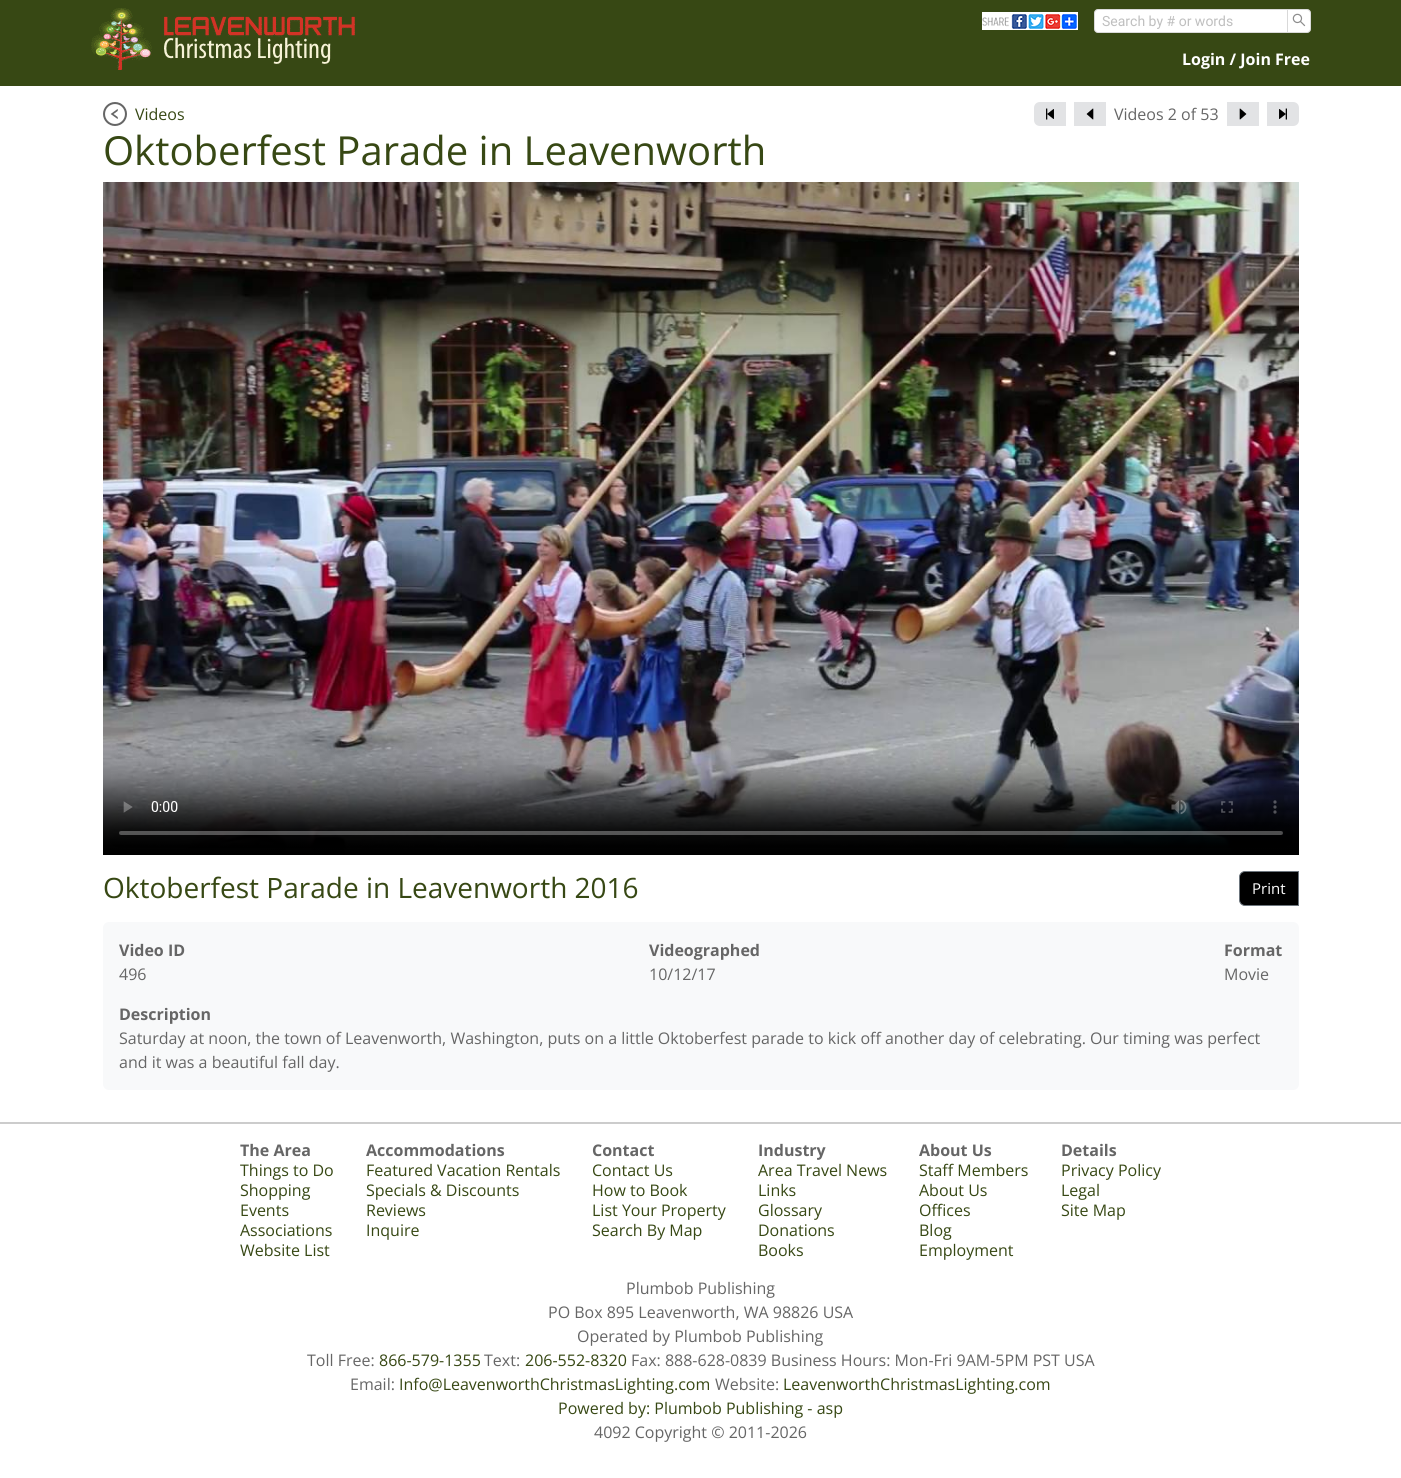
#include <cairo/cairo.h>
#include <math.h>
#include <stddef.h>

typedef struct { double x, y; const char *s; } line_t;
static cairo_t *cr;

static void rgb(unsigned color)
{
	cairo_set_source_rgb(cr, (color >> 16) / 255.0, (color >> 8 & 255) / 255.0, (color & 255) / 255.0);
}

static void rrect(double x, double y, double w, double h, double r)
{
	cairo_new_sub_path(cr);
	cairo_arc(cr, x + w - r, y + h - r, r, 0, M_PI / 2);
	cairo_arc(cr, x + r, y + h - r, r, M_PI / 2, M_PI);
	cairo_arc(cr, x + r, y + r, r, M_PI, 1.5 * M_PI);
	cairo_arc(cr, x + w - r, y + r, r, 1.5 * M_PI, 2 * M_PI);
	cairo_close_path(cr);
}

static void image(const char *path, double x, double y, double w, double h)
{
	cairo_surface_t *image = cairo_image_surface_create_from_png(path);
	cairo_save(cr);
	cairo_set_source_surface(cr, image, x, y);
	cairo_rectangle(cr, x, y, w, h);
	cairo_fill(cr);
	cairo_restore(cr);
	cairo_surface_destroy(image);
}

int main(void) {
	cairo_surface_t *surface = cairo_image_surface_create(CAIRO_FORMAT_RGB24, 1401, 1478);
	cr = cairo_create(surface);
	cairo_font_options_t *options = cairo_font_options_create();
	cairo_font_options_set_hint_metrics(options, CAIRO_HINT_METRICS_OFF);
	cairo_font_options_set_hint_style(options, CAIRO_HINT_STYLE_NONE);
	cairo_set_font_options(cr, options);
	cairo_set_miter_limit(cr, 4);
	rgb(0xffffff);
	cairo_paint(cr);
	rgb(0x374814);
	cairo_rectangle(cr, 0, 0, 1401, 86);
	cairo_fill(cr);
	image("img/1.png", 91, 8, 264, 62);
	image("img/2.png", 982, 12, 96, 18);
	rgb(0xffffff);
	cairo_new_path(cr);
	cairo_move_to(cr, 1098, 9.5);
	cairo_line_to(cr, 1287.5, 9.5);
	cairo_line_to(cr, 1287.5, 32.5);
	cairo_line_to(cr, 1098, 32.5);
	cairo_curve_to(cr, 1096, 32.5, 1094.5, 31, 1094.5, 29);
	cairo_line_to(cr, 1094.5, 13);
	cairo_curve_to(cr, 1094.5, 11, 1096, 9.5, 1098, 9.5);
	cairo_close_path(cr);
	cairo_fill_preserve(cr);
	rgb(0xd9d9d9);
	cairo_set_line_width(cr, 1);
	cairo_stroke(cr);
	rgb(0xffffff);
	cairo_new_path(cr);
	cairo_move_to(cr, 1287.5, 9.5);
	cairo_line_to(cr, 1307, 9.5);
	cairo_curve_to(cr, 1309, 9.5, 1310.5, 11, 1310.5, 13);
	cairo_line_to(cr, 1310.5, 29);
	cairo_curve_to(cr, 1310.5, 31, 1309, 32.5, 1307, 32.5);
	cairo_line_to(cr, 1287.5, 32.5);
	cairo_close_path(cr);
	cairo_fill_preserve(cr);
	rgb(0xd9d9d9);
	cairo_stroke(cr);
	image("img/3.png", 1292, 13, 14, 14);
	image("img/4.png", 103, 102, 24, 24);
	rgb(0xe2e3e5);
	cairo_new_path(cr);
	cairo_move_to(cr, 1040, 102);
	cairo_line_to(cr, 1066, 102);
	cairo_line_to(cr, 1066, 126);
	cairo_line_to(cr, 1040, 126);
	cairo_curve_to(cr, 1036.5, 126, 1034, 123.5, 1034, 120);
	cairo_line_to(cr, 1034, 108);
	cairo_curve_to(cr, 1034, 104.5, 1036.5, 102, 1040, 102);
	cairo_close_path(cr);
	cairo_fill(cr);
	image("img/5.png", 1046, 108, 8, 12);
	cairo_rectangle(cr, 1074, 102, 32, 24);
	cairo_fill(cr);
	image("img/6.png", 1086, 108, 8, 12);
	cairo_rectangle(cr, 1227, 102, 32, 24);
	cairo_fill(cr);
	image("img/7.png", 1239, 108, 8, 12);
	cairo_new_path(cr);
	cairo_move_to(cr, 1267, 102);
	cairo_line_to(cr, 1293, 102);
	cairo_curve_to(cr, 1296.5, 102, 1299, 104.5, 1299, 108);
	cairo_line_to(cr, 1299, 120);
	cairo_curve_to(cr, 1299, 123.5, 1296.5, 126, 1293, 126);
	cairo_line_to(cr, 1267, 126);
	cairo_close_path(cr);
	cairo_fill(cr);
	image("img/8.png", 1279, 108, 8, 12);
	image("img/9.png", 103, 182, 1196, 673);
	rgb(0x000000);
	cairo_new_path(cr);
	cairo_move_to(cr, 1245, 871.5);
	cairo_line_to(cr, 1298.5, 871.5);
	cairo_line_to(cr, 1298.5, 905.5);
	cairo_line_to(cr, 1245, 905.5);
	cairo_curve_to(cr, 1242, 905.5, 1239.5, 903, 1239.5, 900);
	cairo_line_to(cr, 1239.5, 877);
	cairo_curve_to(cr, 1239.5, 874, 1242, 871.5, 1245, 871.5);
	cairo_close_path(cr);
	cairo_fill_preserve(cr);
	rgb(0x6c757d);
	cairo_stroke(cr);
	rgb(0xf8f9fa);
	rrect(103, 922, 1196, 168, 6);
	cairo_fill(cr);
	rgb(0xcccccc);
	cairo_rectangle(cr, 0, 1122, 1401, 2);
	cairo_fill(cr);
	cairo_select_font_face(cr, "Roboto", CAIRO_FONT_SLANT_NORMAL, CAIRO_FONT_WEIGHT_NORMAL);
	cairo_set_font_size(cr, 14);
	rgb(0xbfbfbf);
	cairo_move_to(cr, 1102, 26);
	cairo_show_text(cr, "Search by # or words");
	cairo_select_font_face(cr, "Open Sans", CAIRO_FONT_SLANT_NORMAL, CAIRO_FONT_WEIGHT_BOLD);
	cairo_set_font_size(cr, 16);
	rgb(0xffffff);
	cairo_move_to(cr, 1182, 65);
	cairo_show_text(cr, "Login / Join Free");
	cairo_select_font_face(cr, "Open Sans", CAIRO_FONT_SLANT_NORMAL, CAIRO_FONT_WEIGHT_NORMAL);
	rgb(0x374814);
	cairo_move_to(cr, 135, 120);
	cairo_show_text(cr, "Videos");
	rgb(0x666666);
	cairo_move_to(cr, 1114, 120);
	cairo_show_text(cr, "Videos 2 of 53");
	cairo_set_font_size(cr, 40);
	rgb(0x374814);
	cairo_move_to(cr, 103, 165);
	cairo_show_text(cr, "Oktoberfest Parade in Leavenworth");
	cairo_set_font_size(cr, 28);
	cairo_move_to(cr, 103, 898);
	cairo_show_text(cr, "Oktoberfest Parade in Leavenworth 2016");
	cairo_set_font_size(cr, 15);
	rgb(0xffffff);
	cairo_move_to(cr, 1252, 894);
	cairo_show_text(cr, "Print");
	cairo_select_font_face(cr, "Open Sans", CAIRO_FONT_SLANT_NORMAL, CAIRO_FONT_WEIGHT_BOLD);
	cairo_set_font_size(cr, 16);
	rgb(0x666666);
	cairo_move_to(cr, 119, 956);
	cairo_show_text(cr, "Video ID");
	cairo_select_font_face(cr, "Open Sans", CAIRO_FONT_SLANT_NORMAL, CAIRO_FONT_WEIGHT_NORMAL);
	cairo_move_to(cr, 119, 980);
	cairo_show_text(cr, "496");
	cairo_select_font_face(cr, "Open Sans", CAIRO_FONT_SLANT_NORMAL, CAIRO_FONT_WEIGHT_BOLD);
	cairo_move_to(cr, 649, 956);
	cairo_show_text(cr, "Videographed");
	cairo_select_font_face(cr, "Open Sans", CAIRO_FONT_SLANT_NORMAL, CAIRO_FONT_WEIGHT_NORMAL);
	cairo_move_to(cr, 649, 980);
	cairo_show_text(cr, "10/12/17");
	cairo_select_font_face(cr, "Open Sans", CAIRO_FONT_SLANT_NORMAL, CAIRO_FONT_WEIGHT_BOLD);
	cairo_move_to(cr, 1224, 956);
	cairo_show_text(cr, "Format");
	cairo_select_font_face(cr, "Open Sans", CAIRO_FONT_SLANT_NORMAL, CAIRO_FONT_WEIGHT_NORMAL);
	cairo_move_to(cr, 1224, 980);
	cairo_show_text(cr, "Movie");
	cairo_select_font_face(cr, "Open Sans", CAIRO_FONT_SLANT_NORMAL, CAIRO_FONT_WEIGHT_BOLD);
	cairo_move_to(cr, 119, 1020);
	cairo_show_text(cr, "Description");
	cairo_select_font_face(cr, "Open Sans", CAIRO_FONT_SLANT_NORMAL, CAIRO_FONT_WEIGHT_NORMAL);
	cairo_move_to(cr, 119, 1044);
	cairo_show_text(cr, "Saturday at noon, the town of Leavenworth, Washington, puts on a little Oktoberfest parade to kick off another day of celebrating. Our timing was perfect");
	cairo_move_to(cr, 119, 1068);
	cairo_show_text(cr, "and it was a beautiful fall day.");
	cairo_select_font_face(cr, "Open Sans", CAIRO_FONT_SLANT_NORMAL, CAIRO_FONT_WEIGHT_BOLD);
	cairo_move_to(cr, 240, 1156);
	cairo_show_text(cr, "The Area");
	cairo_select_font_face(cr, "Open Sans", CAIRO_FONT_SLANT_NORMAL, CAIRO_FONT_WEIGHT_NORMAL);
	rgb(0x374814);
	{
		static const line_t items[] = {
			{240, 1176, "Things to Do"},
			{240, 1196, "Shopping"},
			{240, 1216, "Events"},
			{240, 1236, "Associations"},
			{240, 1256, "Website List"},
		};
		for (size_t i = 0; i < sizeof items / sizeof *items; i++) {
			cairo_move_to(cr, items[i].x, items[i].y);
			cairo_show_text(cr, items[i].s);
		}
	}
	cairo_select_font_face(cr, "Open Sans", CAIRO_FONT_SLANT_NORMAL, CAIRO_FONT_WEIGHT_BOLD);
	rgb(0x666666);
	cairo_move_to(cr, 366, 1156);
	cairo_show_text(cr, "Accommodations");
	cairo_select_font_face(cr, "Open Sans", CAIRO_FONT_SLANT_NORMAL, CAIRO_FONT_WEIGHT_NORMAL);
	rgb(0x374814);
	{
		static const line_t items[] = {
			{366, 1176, "Featured Vacation Rentals"},
			{366, 1196, "Specials & Discounts"},
			{366, 1216, "Reviews"},
			{366, 1236, "Inquire"},
		};
		for (size_t i = 0; i < sizeof items / sizeof *items; i++) {
			cairo_move_to(cr, items[i].x, items[i].y);
			cairo_show_text(cr, items[i].s);
		}
	}
	cairo_select_font_face(cr, "Open Sans", CAIRO_FONT_SLANT_NORMAL, CAIRO_FONT_WEIGHT_BOLD);
	rgb(0x666666);
	cairo_move_to(cr, 592, 1156);
	cairo_show_text(cr, "Contact");
	cairo_select_font_face(cr, "Open Sans", CAIRO_FONT_SLANT_NORMAL, CAIRO_FONT_WEIGHT_NORMAL);
	rgb(0x374814);
	{
		static const line_t items[] = {
			{592, 1176, "Contact Us"},
			{592, 1196, "How to Book"},
			{592, 1216, "List Your Property"},
			{592, 1236, "Search By Map"},
		};
		for (size_t i = 0; i < sizeof items / sizeof *items; i++) {
			cairo_move_to(cr, items[i].x, items[i].y);
			cairo_show_text(cr, items[i].s);
		}
	}
	cairo_select_font_face(cr, "Open Sans", CAIRO_FONT_SLANT_NORMAL, CAIRO_FONT_WEIGHT_BOLD);
	rgb(0x666666);
	cairo_move_to(cr, 758, 1156);
	cairo_show_text(cr, "Industry");
	cairo_select_font_face(cr, "Open Sans", CAIRO_FONT_SLANT_NORMAL, CAIRO_FONT_WEIGHT_NORMAL);
	rgb(0x374814);
	{
		static const line_t items[] = {
			{758, 1176, "Area Travel News"},
			{758, 1196, "Links"},
			{758, 1216, "Glossary"},
			{758, 1236, "Donations"},
			{758, 1256, "Books"},
		};
		for (size_t i = 0; i < sizeof items / sizeof *items; i++) {
			cairo_move_to(cr, items[i].x, items[i].y);
			cairo_show_text(cr, items[i].s);
		}
	}
	cairo_select_font_face(cr, "Open Sans", CAIRO_FONT_SLANT_NORMAL, CAIRO_FONT_WEIGHT_BOLD);
	rgb(0x666666);
	cairo_move_to(cr, 919, 1156);
	cairo_show_text(cr, "About Us");
	cairo_select_font_face(cr, "Open Sans", CAIRO_FONT_SLANT_NORMAL, CAIRO_FONT_WEIGHT_NORMAL);
	rgb(0x374814);
	{
		static const line_t items[] = {
			{919, 1176, "Staff Members"},
			{919, 1196, "About Us"},
			{919, 1216, "Offices"},
			{919, 1236, "Blog"},
			{919, 1256, "Employment"},
		};
		for (size_t i = 0; i < sizeof items / sizeof *items; i++) {
			cairo_move_to(cr, items[i].x, items[i].y);
			cairo_show_text(cr, items[i].s);
		}
	}
	cairo_select_font_face(cr, "Open Sans", CAIRO_FONT_SLANT_NORMAL, CAIRO_FONT_WEIGHT_BOLD);
	rgb(0x666666);
	cairo_move_to(cr, 1061, 1156);
	cairo_show_text(cr, "Details");
	cairo_select_font_face(cr, "Open Sans", CAIRO_FONT_SLANT_NORMAL, CAIRO_FONT_WEIGHT_NORMAL);
	rgb(0x374814);
	{
		static const line_t items[] = {
			{1061, 1176, "Privacy Policy"},
			{1061, 1196, "Legal"},
			{1061, 1216, "Site Map"},
		};
		for (size_t i = 0; i < sizeof items / sizeof *items; i++) {
			cairo_move_to(cr, items[i].x, items[i].y);
			cairo_show_text(cr, items[i].s);
		}
	}
	rgb(0x666666);
	{
		static const line_t items[] = {
			{626, 1294, "Plumbob Publishing"},
			{548, 1318, "PO Box 895 Leavenworth, WA 98826 USA"},
			{577, 1342, "Operated by Plumbob Publishing"},
			{307, 1366, "Toll Free:"},
		};
		for (size_t i = 0; i < sizeof items / sizeof *items; i++) {
			cairo_move_to(cr, items[i].x, items[i].y);
			cairo_show_text(cr, items[i].s);
		}
	}
	rgb(0x374814);
	cairo_move_to(cr, 379, 1366);
	cairo_show_text(cr, "866-579-1355");
	rgb(0x666666);
	cairo_move_to(cr, 484, 1366);
	cairo_show_text(cr, "Text:");
	rgb(0x374814);
	cairo_move_to(cr, 525, 1366);
	cairo_show_text(cr, "206-552-8320");
	rgb(0x666666);
	cairo_move_to(cr, 631, 1366);
	cairo_show_text(cr, "Fax: 888-628-0839 Business Hours: Mon-Fri 9AM-5PM PST USA");
	cairo_move_to(cr, 350, 1390);
	cairo_show_text(cr, "Email:");
	rgb(0x374814);
	cairo_move_to(cr, 399, 1390);
	cairo_show_text(cr, "Info@LeavenworthChristmasLighting.com");
	rgb(0x666666);
	cairo_move_to(cr, 715, 1390);
	cairo_show_text(cr, "Website:");
	rgb(0x374814);
	cairo_move_to(cr, 783, 1390);
	cairo_show_text(cr, "LeavenworthChristmasLighting.com");
	cairo_move_to(cr, 558, 1414);
	cairo_show_text(cr, "Powered by: Plumbob Publishing - asp");
	rgb(0x666666);
	cairo_move_to(cr, 594, 1438);
	cairo_show_text(cr, "4092 Copyright © 2011-2026");
	cairo_surface_write_to_png(surface, "page.png");
	cairo_font_options_destroy(options);
	cairo_destroy(cr);
	cairo_surface_destroy(surface);
	return 0;
}
